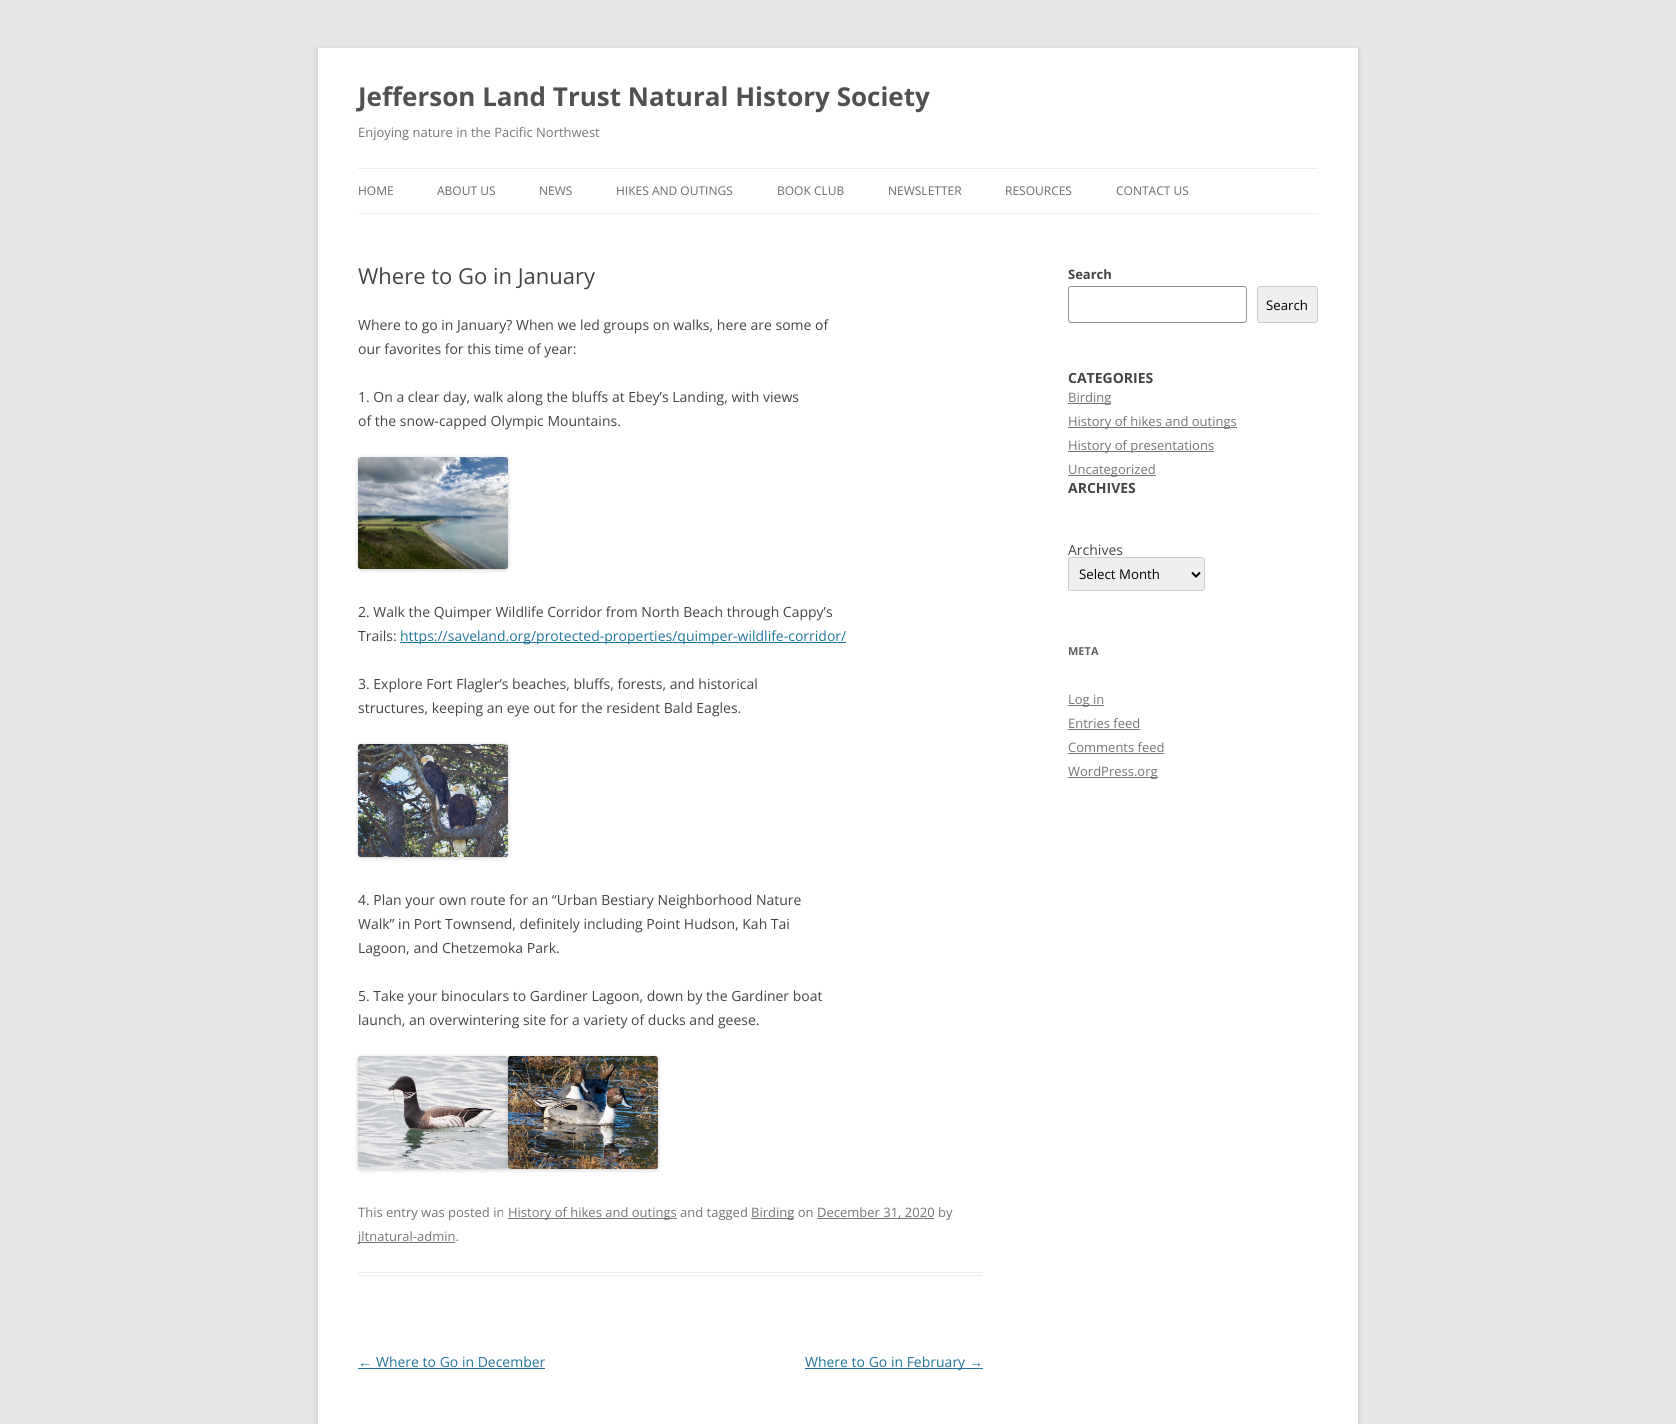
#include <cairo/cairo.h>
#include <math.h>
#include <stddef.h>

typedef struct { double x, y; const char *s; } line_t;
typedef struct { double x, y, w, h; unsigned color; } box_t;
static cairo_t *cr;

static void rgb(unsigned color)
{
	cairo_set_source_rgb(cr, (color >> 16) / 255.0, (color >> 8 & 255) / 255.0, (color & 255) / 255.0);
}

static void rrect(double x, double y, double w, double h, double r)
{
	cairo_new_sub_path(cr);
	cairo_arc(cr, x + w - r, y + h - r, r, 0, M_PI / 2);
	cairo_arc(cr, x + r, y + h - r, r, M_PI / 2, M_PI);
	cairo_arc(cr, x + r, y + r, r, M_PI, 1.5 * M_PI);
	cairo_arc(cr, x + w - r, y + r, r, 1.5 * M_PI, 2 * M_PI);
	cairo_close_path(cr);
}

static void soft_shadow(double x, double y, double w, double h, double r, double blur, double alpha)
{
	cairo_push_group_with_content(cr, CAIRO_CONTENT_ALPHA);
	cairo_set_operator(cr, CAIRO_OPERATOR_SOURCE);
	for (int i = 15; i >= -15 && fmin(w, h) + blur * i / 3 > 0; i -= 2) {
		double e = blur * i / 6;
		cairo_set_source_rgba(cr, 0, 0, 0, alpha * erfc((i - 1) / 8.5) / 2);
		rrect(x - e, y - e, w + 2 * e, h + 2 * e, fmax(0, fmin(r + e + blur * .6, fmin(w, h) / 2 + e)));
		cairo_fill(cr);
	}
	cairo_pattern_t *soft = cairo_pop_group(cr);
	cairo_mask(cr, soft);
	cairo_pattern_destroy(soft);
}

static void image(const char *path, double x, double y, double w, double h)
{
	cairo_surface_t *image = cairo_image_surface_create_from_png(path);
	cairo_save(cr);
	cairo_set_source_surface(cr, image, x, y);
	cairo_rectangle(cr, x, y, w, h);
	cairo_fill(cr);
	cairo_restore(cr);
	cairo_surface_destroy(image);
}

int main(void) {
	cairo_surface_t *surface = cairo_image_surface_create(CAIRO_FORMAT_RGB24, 1676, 1424);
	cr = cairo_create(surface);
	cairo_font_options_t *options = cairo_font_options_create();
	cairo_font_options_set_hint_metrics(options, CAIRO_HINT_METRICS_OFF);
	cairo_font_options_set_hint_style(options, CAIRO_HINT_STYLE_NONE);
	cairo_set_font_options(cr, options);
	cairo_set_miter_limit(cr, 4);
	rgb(0xe6e6e6);
	cairo_paint(cr);
	rgb(0x646464);
	soft_shadow(318, 50, 1040, 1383, 0, 3, 0.3);
	{
		static const box_t items[] = {
			{318, 48, 1040, 1376, 0xffffff},
			{358, 168, 960, 1, 0xededed},
			{358, 213, 960, 1, 0xededed},
			{358, 1272, 625, 1, 0xededed},
			{358, 1275, 625, 1, 0xededed},
		};
		for (size_t i = 0; i < sizeof items / sizeof *items; i++) {
			rgb(items[i].color);
			cairo_rectangle(cr, items[i].x, items[i].y, items[i].w, items[i].h);
			cairo_fill(cr);
		}
	}
	rgb(0x000000);
	soft_shadow(358, 458, 150, 112, 3, 2, 0.2);
	image("img/1.png", 358, 457, 150, 112);
	rgb(0x21759b);
	cairo_rectangle(cr, 400, 642, 446, 1);
	cairo_fill(cr);
	rgb(0x000000);
	soft_shadow(358, 745, 150, 113, 3, 2, 0.2);
	image("img/2.png", 358, 744, 150, 113);
	soft_shadow(358, 1057, 150, 113, 3, 2, 0.2);
	image("img/3.png", 358, 1056, 150, 113);
	soft_shadow(508, 1057, 150, 113, 3, 2, 0.2);
	image("img/4.png", 508, 1056, 150, 113);
	{
		static const box_t items[] = {
			{508, 1218, 169, 1, 0x757575},
			{751, 1218, 43, 1, 0x757575},
			{817, 1218, 117, 1, 0x757575},
			{358, 1242, 97, 1, 0x757575},
			{358, 1368, 187, 1, 0x21759b},
			{805, 1368, 178, 1, 0x21759b},
		};
		for (size_t i = 0; i < sizeof items / sizeof *items; i++) {
			rgb(items[i].color);
			cairo_rectangle(cr, items[i].x, items[i].y, items[i].w, items[i].h);
			cairo_fill(cr);
		}
	}
	rrect(1068.5, 286.5, 178, 36, 2.5);
	rgb(0x949494);
	cairo_set_line_width(cr, 1);
	cairo_stroke(cr);
	rgb(0xefefef);
	rrect(1257.5, 286.5, 60, 36, 2.5);
	cairo_fill_preserve(cr);
	rgb(0xcccccc);
	cairo_stroke(cr);
	{
		static const box_t items[] = {
			{1068, 403, 43, 1, 0x757575},
			{1068, 427, 169, 1, 0x757575},
			{1068, 451, 146, 1, 0x757575},
			{1068, 475, 88, 1, 0x757575},
		};
		for (size_t i = 0; i < sizeof items / sizeof *items; i++) {
			rgb(items[i].color);
			cairo_rectangle(cr, items[i].x, items[i].y, items[i].w, items[i].h);
			cairo_fill(cr);
		}
	}
	rgb(0xefefef);
	rrect(1068.5, 557.5, 136, 33, 2.5);
	cairo_fill_preserve(cr);
	rgb(0xcccccc);
	cairo_stroke(cr);
	cairo_new_path(cr);
	cairo_move_to(cr, 1192, 572.5);
	cairo_line_to(cr, 1196, 576.5);
	cairo_line_to(cr, 1200, 572.5);
	rgb(0x000000);
	cairo_set_line_width(cr, 2);
	cairo_stroke(cr);
	{
		static const box_t items[] = {
			{1068, 705, 36, 1, 0x757575},
			{1068, 729, 72, 1, 0x757575},
			{1068, 753, 96, 1, 0x757575},
			{1068, 777, 90, 1, 0x757575},
		};
		for (size_t i = 0; i < sizeof items / sizeof *items; i++) {
			rgb(items[i].color);
			cairo_rectangle(cr, items[i].x, items[i].y, items[i].w, items[i].h);
			cairo_fill(cr);
		}
	}
	cairo_select_font_face(cr, "Open Sans", CAIRO_FONT_SLANT_NORMAL, CAIRO_FONT_WEIGHT_BOLD);
	cairo_set_font_size(cr, 26);
	rgb(0x515151);
	cairo_move_to(cr, 358, 106);
	cairo_show_text(cr, "Jefferson Land Trust Natural History Society");
	cairo_select_font_face(cr, "Open Sans", CAIRO_FONT_SLANT_NORMAL, CAIRO_FONT_WEIGHT_NORMAL);
	cairo_set_font_size(cr, 13);
	rgb(0x757575);
	cairo_move_to(cr, 358, 137);
	cairo_show_text(cr, "Enjoying nature in the Pacific Northwest");
	cairo_set_font_size(cr, 12);
	rgb(0x6a6a6a);
	{
		static const line_t items[] = {
			{358, 195, "HOME"},
			{437, 195, "ABOUT US"},
			{539, 195, "NEWS"},
			{616, 195, "HIKES AND OUTINGS"},
			{777, 195, "BOOK CLUB"},
			{888, 195, "NEWSLETTER"},
			{1005, 195, "RESOURCES"},
			{1116, 195, "CONTACT US"},
		};
		for (size_t i = 0; i < sizeof items / sizeof *items; i++) {
			cairo_move_to(cr, items[i].x, items[i].y);
			cairo_show_text(cr, items[i].s);
		}
	}
	cairo_set_font_size(cr, 22);
	rgb(0x444444);
	cairo_move_to(cr, 358, 284);
	cairo_show_text(cr, "Where to Go in January");
	cairo_set_font_size(cr, 14);
	{
		static const line_t items[] = {
			{358, 330, "Where to go in January? When we led groups on walks, here are some of"},
			{358, 354, "our favorites for this time of year:"},
			{358, 402, "1. On a clear day, walk along the bluffs at Ebey’s Landing, with views"},
			{358, 426, "of the snow-capped Olympic Mountains."},
			{358, 617, "2. Walk the Quimper Wildlife Corridor from North Beach through Cappy’s"},
			{358, 641, "Trails:"},
		};
		for (size_t i = 0; i < sizeof items / sizeof *items; i++) {
			cairo_move_to(cr, items[i].x, items[i].y);
			cairo_show_text(cr, items[i].s);
		}
	}
	rgb(0x21759b);
	cairo_move_to(cr, 400, 641);
	cairo_show_text(cr, "https://saveland.org/protected-properties/quimper-wildlife-corridor/");
	rgb(0x444444);
	{
		static const line_t items[] = {
			{358, 689, "3. Explore Fort Flagler’s beaches, bluffs, forests, and historical"},
			{358, 713, "structures, keeping an eye out for the resident Bald Eagles."},
			{358, 905, "4. Plan your own route for an “Urban Bestiary Neighborhood Nature"},
			{358, 929, "Walk” in Port Townsend, definitely including Point Hudson, Kah Tai"},
			{358, 953, "Lagoon, and Chetzemoka Park."},
			{358, 1001, "5. Take your binoculars to Gardiner Lagoon, down by the Gardiner boat"},
			{358, 1025, "launch, an overwintering site for a variety of ducks and geese."},
		};
		for (size_t i = 0; i < sizeof items / sizeof *items; i++) {
			cairo_move_to(cr, items[i].x, items[i].y);
			cairo_show_text(cr, items[i].s);
		}
	}
	cairo_set_font_size(cr, 13);
	rgb(0x757575);
	{
		static const line_t items[] = {
			{358, 1217, "This entry was posted in"},
			{508, 1217, "History of hikes and outings and tagged"},
			{751, 1217, "Birding on"},
			{817, 1217, "December 31, 2020 by"},
			{358, 1241, "jltnatural-admin."},
		};
		for (size_t i = 0; i < sizeof items / sizeof *items; i++) {
			cairo_move_to(cr, items[i].x, items[i].y);
			cairo_show_text(cr, items[i].s);
		}
	}
	cairo_select_font_face(cr, "Liberation Sans", CAIRO_FONT_SLANT_NORMAL, CAIRO_FONT_WEIGHT_NORMAL);
	cairo_set_font_size(cr, 14);
	rgb(0x21759b);
	cairo_move_to(cr, 358, 1367);
	cairo_show_text(cr, "←");
	cairo_select_font_face(cr, "Open Sans", CAIRO_FONT_SLANT_NORMAL, CAIRO_FONT_WEIGHT_NORMAL);
	cairo_move_to(cr, 376, 1367);
	cairo_show_text(cr, "Where to Go in December");
	cairo_move_to(cr, 805, 1367);
	cairo_show_text(cr, "Where to Go in February");
	cairo_select_font_face(cr, "Liberation Sans", CAIRO_FONT_SLANT_NORMAL, CAIRO_FONT_WEIGHT_NORMAL);
	cairo_move_to(cr, 969, 1367);
	cairo_show_text(cr, "→");
	cairo_select_font_face(cr, "Open Sans", CAIRO_FONT_SLANT_NORMAL, CAIRO_FONT_WEIGHT_BOLD);
	cairo_set_font_size(cr, 13);
	rgb(0x444444);
	cairo_move_to(cr, 1068, 279);
	cairo_show_text(cr, "Search");
	cairo_select_font_face(cr, "Open Sans", CAIRO_FONT_SLANT_NORMAL, CAIRO_FONT_WEIGHT_NORMAL);
	cairo_set_font_size(cr, 13.25);
	rgb(0x000000);
	cairo_move_to(cr, 1266, 310);
	cairo_show_text(cr, "Search");
	cairo_select_font_face(cr, "Open Sans", CAIRO_FONT_SLANT_NORMAL, CAIRO_FONT_WEIGHT_BOLD);
	cairo_set_font_size(cr, 14);
	rgb(0x444444);
	cairo_move_to(cr, 1068, 383);
	cairo_show_text(cr, "CATEGORIES");
	cairo_select_font_face(cr, "Open Sans", CAIRO_FONT_SLANT_NORMAL, CAIRO_FONT_WEIGHT_NORMAL);
	cairo_set_font_size(cr, 13);
	rgb(0x757575);
	{
		static const line_t items[] = {
			{1068, 402, "Birding"},
			{1068, 426, "History of hikes and outings"},
			{1068, 450, "History of presentations"},
			{1068, 474, "Uncategorized"},
		};
		for (size_t i = 0; i < sizeof items / sizeof *items; i++) {
			cairo_move_to(cr, items[i].x, items[i].y);
			cairo_show_text(cr, items[i].s);
		}
	}
	cairo_select_font_face(cr, "Open Sans", CAIRO_FONT_SLANT_NORMAL, CAIRO_FONT_WEIGHT_BOLD);
	cairo_set_font_size(cr, 14);
	rgb(0x444444);
	cairo_move_to(cr, 1068, 493);
	cairo_show_text(cr, "ARCHIVES");
	cairo_select_font_face(cr, "Open Sans", CAIRO_FONT_SLANT_NORMAL, CAIRO_FONT_WEIGHT_NORMAL);
	cairo_move_to(cr, 1068, 555);
	cairo_show_text(cr, "Archives");
	cairo_set_font_size(cr, 13.25);
	rgb(0x000000);
	cairo_move_to(cr, 1079, 579);
	cairo_show_text(cr, "Select Month");
	cairo_select_font_face(cr, "Open Sans", CAIRO_FONT_SLANT_NORMAL, CAIRO_FONT_WEIGHT_BOLD);
	cairo_set_font_size(cr, 11);
	rgb(0x636363);
	cairo_move_to(cr, 1068, 655);
	cairo_show_text(cr, "META");
	cairo_select_font_face(cr, "Open Sans", CAIRO_FONT_SLANT_NORMAL, CAIRO_FONT_WEIGHT_NORMAL);
	cairo_set_font_size(cr, 13);
	rgb(0x757575);
	{
		static const line_t items[] = {
			{1068, 704, "Log in"},
			{1068, 728, "Entries feed"},
			{1068, 752, "Comments feed"},
			{1068, 776, "WordPress.org"},
		};
		for (size_t i = 0; i < sizeof items / sizeof *items; i++) {
			cairo_move_to(cr, items[i].x, items[i].y);
			cairo_show_text(cr, items[i].s);
		}
	}
	cairo_surface_write_to_png(surface, "page.png");
	cairo_font_options_destroy(options);
	cairo_destroy(cr);
	cairo_surface_destroy(surface);
	return 0;
}
